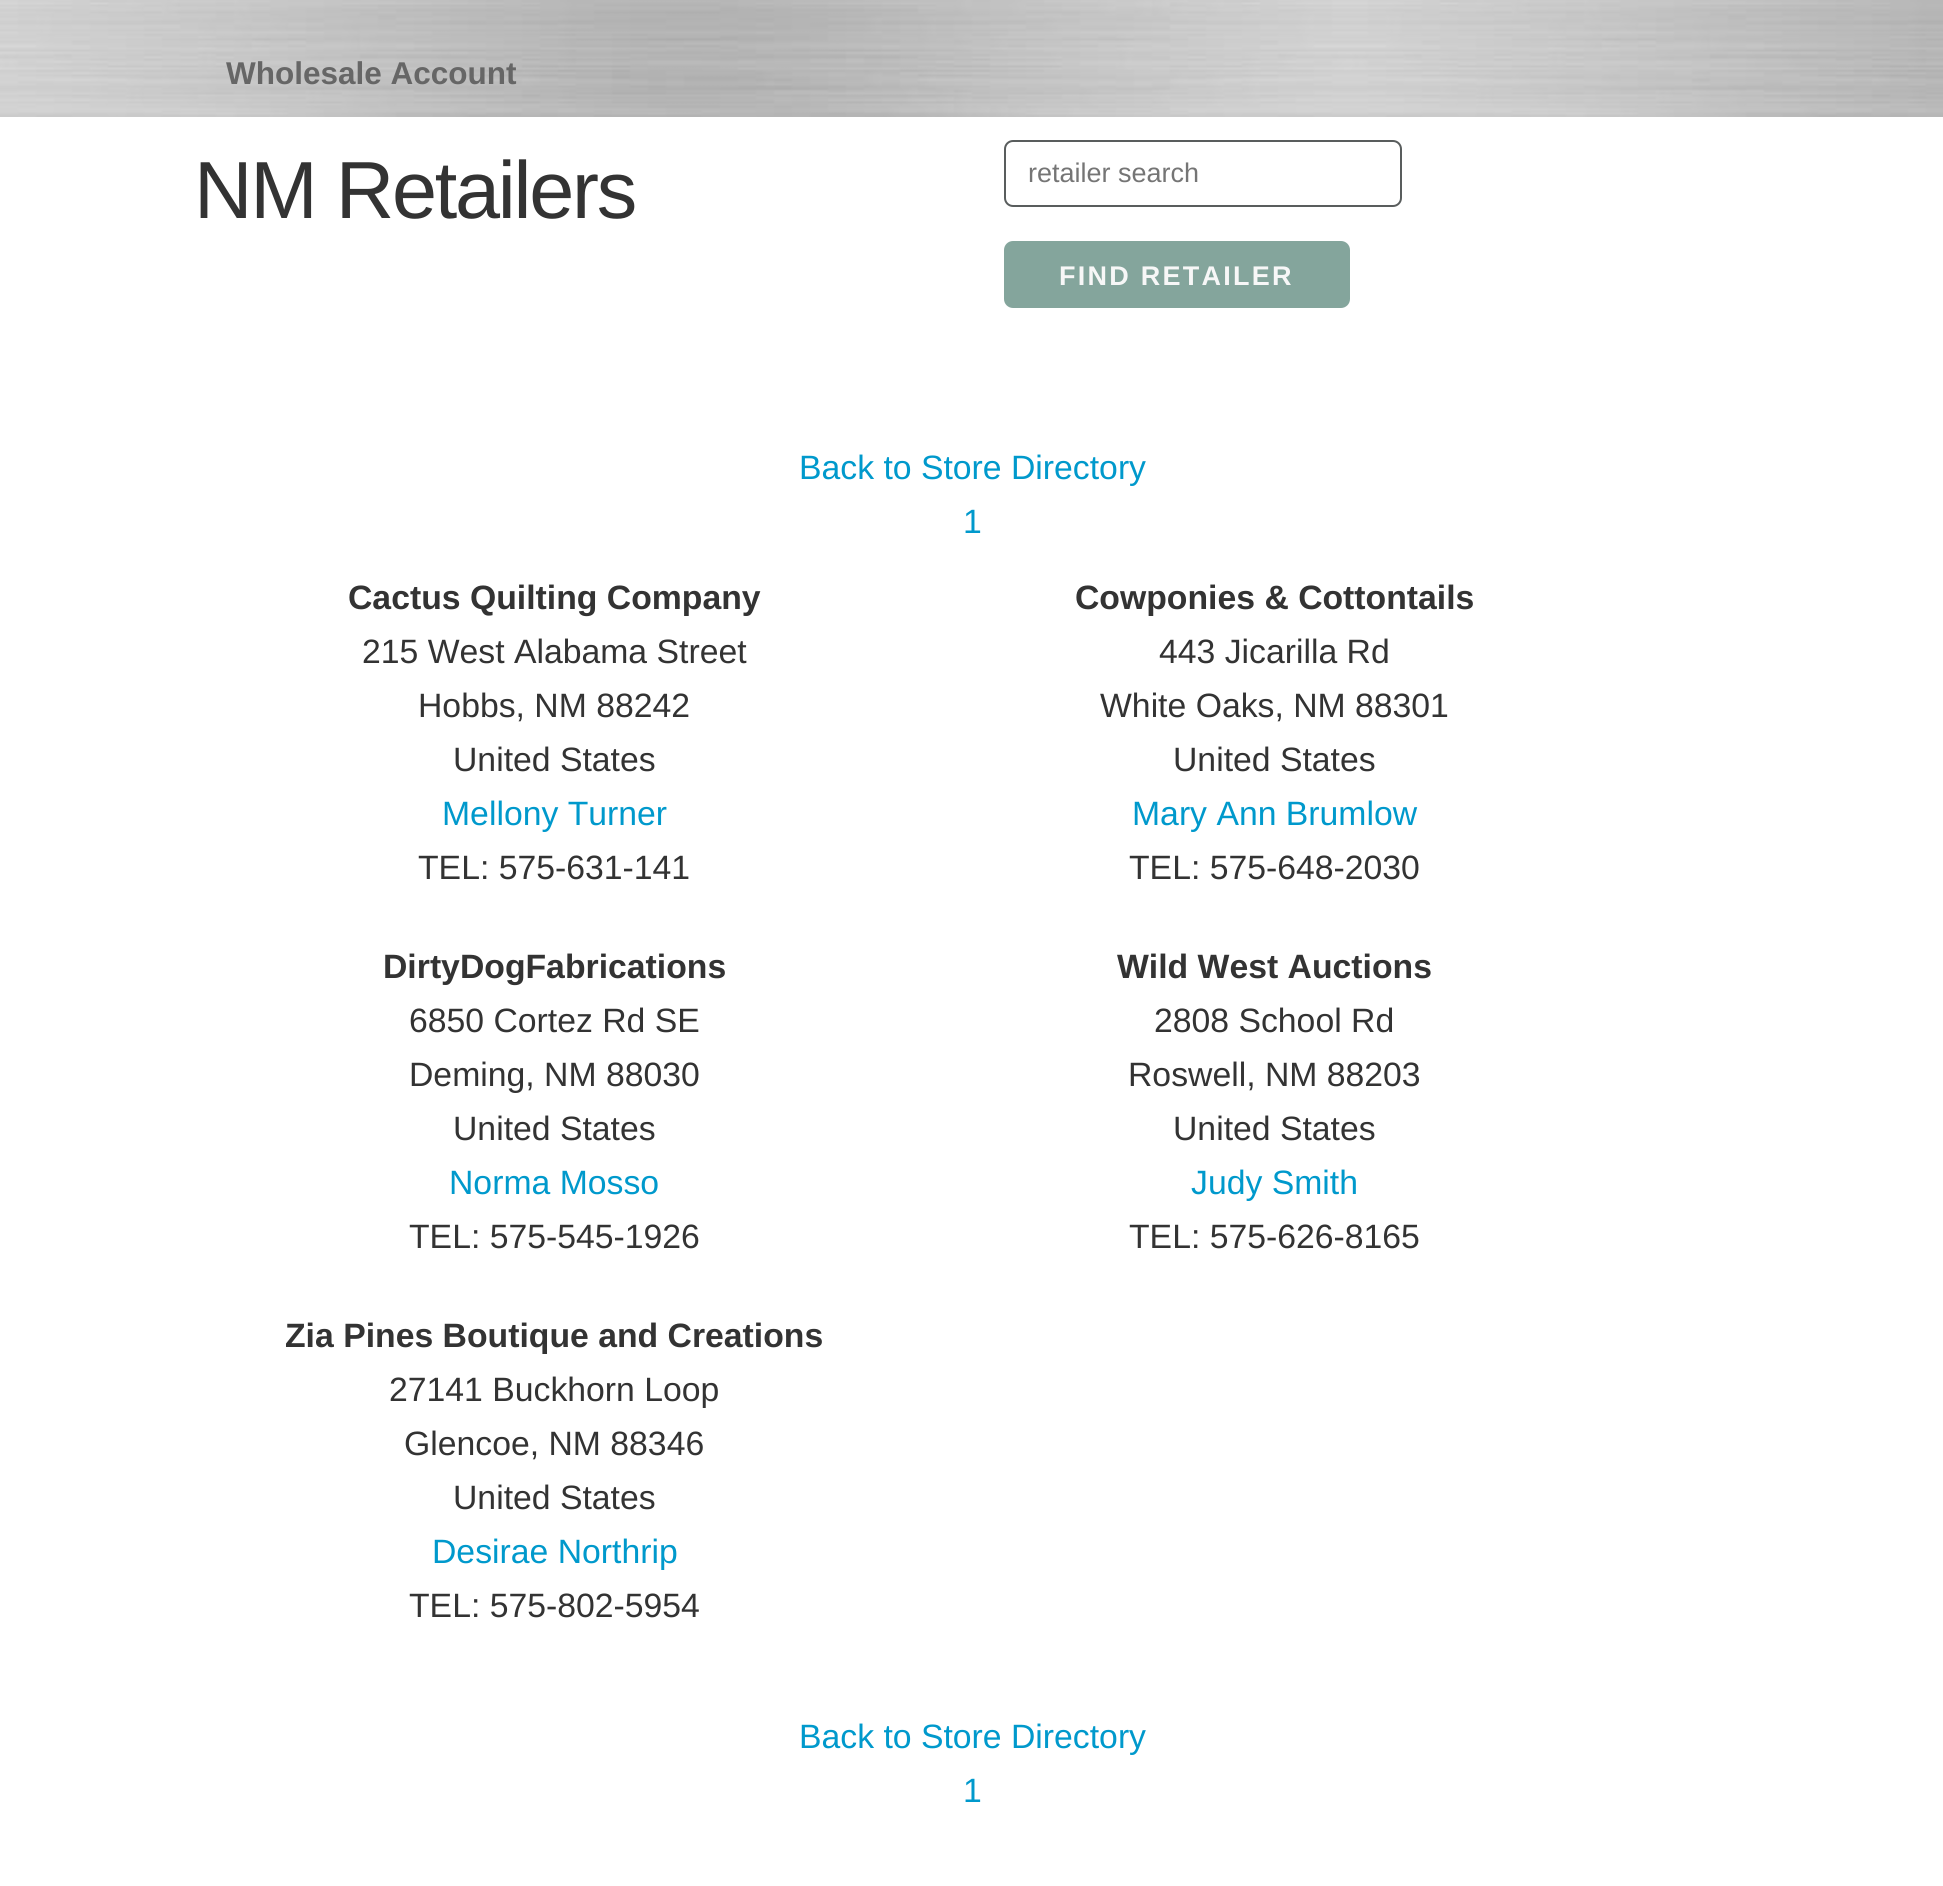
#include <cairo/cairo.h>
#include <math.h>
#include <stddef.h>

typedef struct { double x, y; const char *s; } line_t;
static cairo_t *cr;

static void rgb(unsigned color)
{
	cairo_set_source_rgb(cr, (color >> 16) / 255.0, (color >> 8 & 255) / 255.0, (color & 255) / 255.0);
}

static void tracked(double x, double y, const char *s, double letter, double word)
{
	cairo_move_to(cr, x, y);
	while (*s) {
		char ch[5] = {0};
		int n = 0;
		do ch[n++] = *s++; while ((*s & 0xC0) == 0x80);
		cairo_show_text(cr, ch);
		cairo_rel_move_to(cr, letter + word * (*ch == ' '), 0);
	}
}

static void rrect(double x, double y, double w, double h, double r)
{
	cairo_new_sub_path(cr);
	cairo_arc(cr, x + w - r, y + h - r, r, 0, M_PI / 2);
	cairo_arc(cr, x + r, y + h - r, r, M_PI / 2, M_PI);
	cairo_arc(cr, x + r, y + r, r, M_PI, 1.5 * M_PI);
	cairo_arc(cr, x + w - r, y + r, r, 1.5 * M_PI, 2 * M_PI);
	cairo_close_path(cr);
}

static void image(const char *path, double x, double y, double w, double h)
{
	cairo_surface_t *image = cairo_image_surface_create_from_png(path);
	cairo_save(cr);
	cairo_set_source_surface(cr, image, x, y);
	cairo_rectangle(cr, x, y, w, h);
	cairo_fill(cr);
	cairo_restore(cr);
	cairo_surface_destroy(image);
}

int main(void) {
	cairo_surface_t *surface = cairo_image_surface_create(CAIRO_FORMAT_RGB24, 1943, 1886);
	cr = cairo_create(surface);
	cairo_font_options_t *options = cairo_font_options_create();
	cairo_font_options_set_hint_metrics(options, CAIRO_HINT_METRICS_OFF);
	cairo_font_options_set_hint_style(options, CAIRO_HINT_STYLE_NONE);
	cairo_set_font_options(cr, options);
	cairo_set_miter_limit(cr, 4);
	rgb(0xffffff);
	cairo_paint(cr);
	image("img/1.png", 0, 0, 1943, 117);
	rrect(1005, 141, 396, 65, 8);
	rgb(0x595d5d);
	cairo_stroke(cr);
	rgb(0x84a59c);
	rrect(1005, 242, 344, 65, 8);
	cairo_fill_preserve(cr);
	cairo_stroke(cr);
	cairo_select_font_face(cr, "Liberation Sans", CAIRO_FONT_SLANT_NORMAL, CAIRO_FONT_WEIGHT_BOLD);
	cairo_set_font_size(cr, 31.5);
	rgb(0x666666);
	cairo_move_to(cr, 226, 84);
	cairo_show_text(cr, "Wholesale Account");
	cairo_select_font_face(cr, "Liberation Sans", CAIRO_FONT_SLANT_NORMAL, CAIRO_FONT_WEIGHT_NORMAL);
	cairo_set_font_size(cr, 81);
	rgb(0x333333);
	tracked(194, 218, "NM Retailers", -2.25, 0);
	cairo_set_font_size(cr, 27);
	rgb(0x757575);
	cairo_move_to(cr, 1028, 182);
	cairo_show_text(cr, "retailer search");
	cairo_select_font_face(cr, "Liberation Sans", CAIRO_FONT_SLANT_NORMAL, CAIRO_FONT_WEIGHT_BOLD);
	rgb(0xf7f7f7);
	tracked(1059, 285, "FIND RETAILER", 2.25, 0);
	cairo_select_font_face(cr, "Liberation Sans", CAIRO_FONT_SLANT_NORMAL, CAIRO_FONT_WEIGHT_NORMAL);
	cairo_set_font_size(cr, 33.75);
	rgb(0x0099cc);
	cairo_move_to(cr, 799, 479);
	cairo_show_text(cr, "Back to Store Directory");
	cairo_move_to(cr, 963, 533);
	cairo_show_text(cr, "1");
	cairo_select_font_face(cr, "Liberation Sans", CAIRO_FONT_SLANT_NORMAL, CAIRO_FONT_WEIGHT_BOLD);
	rgb(0x333333);
	cairo_move_to(cr, 348, 609);
	cairo_show_text(cr, "Cactus Quilting Company");
	cairo_select_font_face(cr, "Liberation Sans", CAIRO_FONT_SLANT_NORMAL, CAIRO_FONT_WEIGHT_NORMAL);
	{
		static const line_t items[] = {
			{362, 663, "215 West Alabama Street"},
			{418, 717, "Hobbs, NM 88242"},
			{453, 771, "United States"},
		};
		for (size_t i = 0; i < sizeof items / sizeof *items; i++) {
			cairo_move_to(cr, items[i].x, items[i].y);
			cairo_show_text(cr, items[i].s);
		}
	}
	rgb(0x0099cc);
	cairo_move_to(cr, 442, 825);
	cairo_show_text(cr, "Mellony Turner");
	rgb(0x333333);
	cairo_move_to(cr, 418, 879);
	cairo_show_text(cr, "TEL: 575-631-141");
	cairo_select_font_face(cr, "Liberation Sans", CAIRO_FONT_SLANT_NORMAL, CAIRO_FONT_WEIGHT_BOLD);
	cairo_move_to(cr, 1075, 609);
	cairo_show_text(cr, "Cowponies & Cottontails");
	cairo_select_font_face(cr, "Liberation Sans", CAIRO_FONT_SLANT_NORMAL, CAIRO_FONT_WEIGHT_NORMAL);
	{
		static const line_t items[] = {
			{1159, 663, "443 Jicarilla Rd"},
			{1100, 717, "White Oaks, NM 88301"},
			{1173, 771, "United States"},
		};
		for (size_t i = 0; i < sizeof items / sizeof *items; i++) {
			cairo_move_to(cr, items[i].x, items[i].y);
			cairo_show_text(cr, items[i].s);
		}
	}
	rgb(0x0099cc);
	cairo_move_to(cr, 1132, 825);
	cairo_show_text(cr, "Mary Ann Brumlow");
	rgb(0x333333);
	cairo_move_to(cr, 1129, 879);
	cairo_show_text(cr, "TEL: 575-648-2030");
	cairo_select_font_face(cr, "Liberation Sans", CAIRO_FONT_SLANT_NORMAL, CAIRO_FONT_WEIGHT_BOLD);
	cairo_move_to(cr, 383, 978);
	cairo_show_text(cr, "DirtyDogFabrications");
	cairo_select_font_face(cr, "Liberation Sans", CAIRO_FONT_SLANT_NORMAL, CAIRO_FONT_WEIGHT_NORMAL);
	{
		static const line_t items[] = {
			{409, 1032, "6850 Cortez Rd SE"},
			{409, 1086, "Deming, NM 88030"},
			{453, 1140, "United States"},
		};
		for (size_t i = 0; i < sizeof items / sizeof *items; i++) {
			cairo_move_to(cr, items[i].x, items[i].y);
			cairo_show_text(cr, items[i].s);
		}
	}
	rgb(0x0099cc);
	cairo_move_to(cr, 449, 1194);
	cairo_show_text(cr, "Norma Mosso");
	rgb(0x333333);
	cairo_move_to(cr, 409, 1248);
	cairo_show_text(cr, "TEL: 575-545-1926");
	cairo_select_font_face(cr, "Liberation Sans", CAIRO_FONT_SLANT_NORMAL, CAIRO_FONT_WEIGHT_BOLD);
	cairo_move_to(cr, 1117, 978);
	cairo_show_text(cr, "Wild West Auctions");
	cairo_select_font_face(cr, "Liberation Sans", CAIRO_FONT_SLANT_NORMAL, CAIRO_FONT_WEIGHT_NORMAL);
	{
		static const line_t items[] = {
			{1154, 1032, "2808 School Rd"},
			{1128, 1086, "Roswell, NM 88203"},
			{1173, 1140, "United States"},
		};
		for (size_t i = 0; i < sizeof items / sizeof *items; i++) {
			cairo_move_to(cr, items[i].x, items[i].y);
			cairo_show_text(cr, items[i].s);
		}
	}
	rgb(0x0099cc);
	cairo_move_to(cr, 1191, 1194);
	cairo_show_text(cr, "Judy Smith");
	rgb(0x333333);
	cairo_move_to(cr, 1129, 1248);
	cairo_show_text(cr, "TEL: 575-626-8165");
	cairo_select_font_face(cr, "Liberation Sans", CAIRO_FONT_SLANT_NORMAL, CAIRO_FONT_WEIGHT_BOLD);
	cairo_move_to(cr, 285, 1347);
	cairo_show_text(cr, "Zia Pines Boutique and Creations");
	cairo_select_font_face(cr, "Liberation Sans", CAIRO_FONT_SLANT_NORMAL, CAIRO_FONT_WEIGHT_NORMAL);
	{
		static const line_t items[] = {
			{389, 1401, "27141 Buckhorn Loop"},
			{404, 1455, "Glencoe, NM 88346"},
			{453, 1509, "United States"},
		};
		for (size_t i = 0; i < sizeof items / sizeof *items; i++) {
			cairo_move_to(cr, items[i].x, items[i].y);
			cairo_show_text(cr, items[i].s);
		}
	}
	rgb(0x0099cc);
	cairo_move_to(cr, 432, 1563);
	cairo_show_text(cr, "Desirae Northrip");
	rgb(0x333333);
	cairo_move_to(cr, 409, 1617);
	cairo_show_text(cr, "TEL: 575-802-5954");
	rgb(0x0099cc);
	cairo_move_to(cr, 799, 1748);
	cairo_show_text(cr, "Back to Store Directory");
	cairo_move_to(cr, 963, 1802);
	cairo_show_text(cr, "1");
	cairo_surface_write_to_png(surface, "page.png");
	cairo_font_options_destroy(options);
	cairo_destroy(cr);
	cairo_surface_destroy(surface);
	return 0;
}
